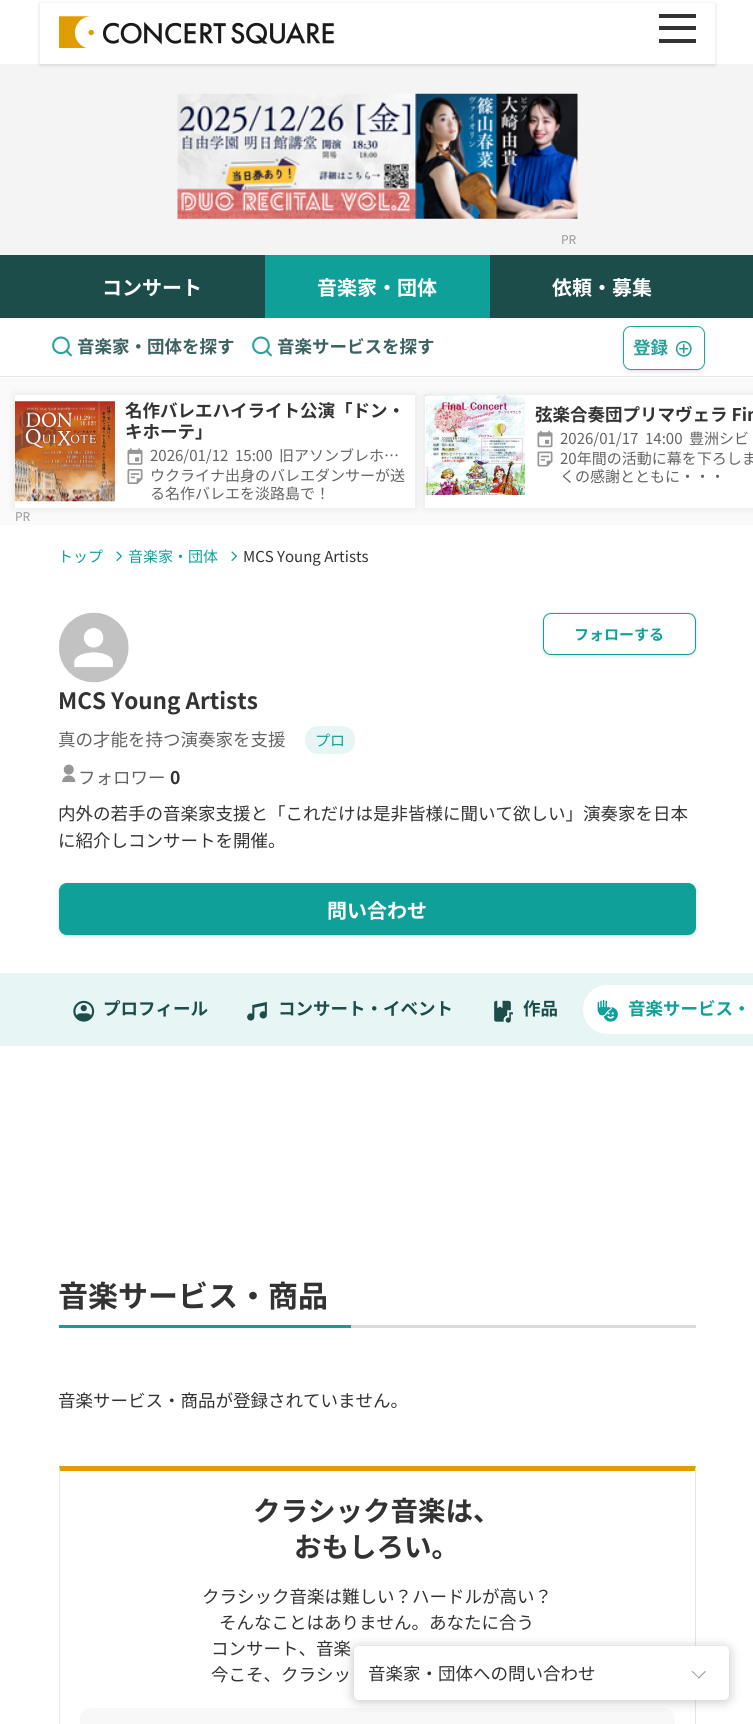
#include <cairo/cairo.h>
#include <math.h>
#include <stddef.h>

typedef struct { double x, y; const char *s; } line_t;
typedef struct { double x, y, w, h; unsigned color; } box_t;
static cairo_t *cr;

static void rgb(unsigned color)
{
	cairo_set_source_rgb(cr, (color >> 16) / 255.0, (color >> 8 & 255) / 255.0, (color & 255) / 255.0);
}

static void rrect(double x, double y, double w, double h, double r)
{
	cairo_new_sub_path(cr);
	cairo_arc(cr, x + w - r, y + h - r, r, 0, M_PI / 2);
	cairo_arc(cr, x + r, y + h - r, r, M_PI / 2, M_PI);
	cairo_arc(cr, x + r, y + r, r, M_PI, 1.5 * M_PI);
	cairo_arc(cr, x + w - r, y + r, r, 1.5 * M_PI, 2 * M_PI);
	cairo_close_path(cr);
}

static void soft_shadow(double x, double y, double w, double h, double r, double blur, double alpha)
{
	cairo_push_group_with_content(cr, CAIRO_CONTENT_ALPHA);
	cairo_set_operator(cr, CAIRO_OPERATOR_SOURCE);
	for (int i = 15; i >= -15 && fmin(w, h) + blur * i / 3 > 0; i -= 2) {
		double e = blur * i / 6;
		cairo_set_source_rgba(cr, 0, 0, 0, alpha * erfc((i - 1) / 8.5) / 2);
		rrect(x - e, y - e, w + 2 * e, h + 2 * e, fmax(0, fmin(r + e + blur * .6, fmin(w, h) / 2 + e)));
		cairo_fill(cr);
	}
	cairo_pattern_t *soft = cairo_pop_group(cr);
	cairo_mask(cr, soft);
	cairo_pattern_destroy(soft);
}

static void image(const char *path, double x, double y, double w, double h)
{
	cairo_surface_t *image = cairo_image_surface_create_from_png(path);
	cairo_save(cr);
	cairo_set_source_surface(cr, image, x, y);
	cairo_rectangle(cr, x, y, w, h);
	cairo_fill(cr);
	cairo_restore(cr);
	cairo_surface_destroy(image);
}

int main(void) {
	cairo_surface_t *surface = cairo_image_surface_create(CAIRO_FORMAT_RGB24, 753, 1724);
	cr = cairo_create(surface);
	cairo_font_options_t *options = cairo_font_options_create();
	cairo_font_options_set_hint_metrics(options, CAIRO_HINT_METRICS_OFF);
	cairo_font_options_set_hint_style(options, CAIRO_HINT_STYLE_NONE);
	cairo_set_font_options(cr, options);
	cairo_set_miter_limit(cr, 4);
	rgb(0xffffff);
	cairo_paint(cr);
	rgb(0xf4f4f4);
	cairo_rectangle(cr, 0, 64, 753, 191);
	cairo_fill(cr);
	cairo_save(cr);
	cairo_set_fill_rule(cr, CAIRO_FILL_RULE_EVEN_ODD);
	cairo_new_path(cr);
	cairo_move_to(cr, 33, 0);
	cairo_line_to(cr, 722, 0);
	cairo_line_to(cr, 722, 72);
	cairo_line_to(cr, 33, 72);
	cairo_close_path(cr);
	cairo_move_to(cr, 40, 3);
	cairo_line_to(cr, 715, 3);
	cairo_line_to(cr, 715, 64);
	cairo_line_to(cr, 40, 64);
	cairo_close_path(cr);
	cairo_clip(cr);
	rgb(0x000000);
	soft_shadow(40, 4, 675, 61, 0, 2, 0.15);
	cairo_restore(cr);
	image("img/1.png", 59, 16, 275, 32);
	{
		static const box_t items[] = {
			{659, 14, 37, 4, 0x333333},
			{659, 26, 37, 4, 0x333333},
			{659, 39, 37, 4, 0x333333},
		};
		for (size_t i = 0; i < sizeof items / sizeof *items; i++) {
			rgb(items[i].color);
			cairo_rectangle(cr, items[i].x, items[i].y, items[i].w, items[i].h);
			cairo_fill(cr);
		}
	}
	image("img/2.png", 177, 93, 401, 126);
	{
		static const box_t items[] = {
			{0, 255, 753, 63, 0x1c4d4a},
			{265, 255, 225, 63, 0x0fa199},
			{0, 376, 753, 1, 0xe6e6e6},
		};
		for (size_t i = 0; i < sizeof items / sizeof *items; i++) {
			rgb(items[i].color);
			cairo_rectangle(cr, items[i].x, items[i].y, items[i].w, items[i].h);
			cairo_fill(cr);
		}
	}
	image("img/3.png", 52, 336, 20, 21);
	image("img/3.png", 252, 336, 20, 21);
	cairo_save(cr);
	cairo_set_fill_rule(cr, CAIRO_FILL_RULE_EVEN_ODD);
	cairo_new_path(cr);
	cairo_move_to(cr, 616, 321);
	cairo_line_to(cr, 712, 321);
	cairo_line_to(cr, 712, 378);
	cairo_line_to(cr, 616, 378);
	cairo_close_path(cr);
	cairo_move_to(cr, 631, 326);
	cairo_line_to(cr, 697, 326);
	cairo_curve_to(cr, 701.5, 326, 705, 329.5, 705, 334);
	cairo_line_to(cr, 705, 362);
	cairo_curve_to(cr, 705, 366.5, 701.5, 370, 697, 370);
	cairo_line_to(cr, 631, 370);
	cairo_curve_to(cr, 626.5, 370, 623, 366.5, 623, 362);
	cairo_line_to(cr, 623, 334);
	cairo_curve_to(cr, 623, 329.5, 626.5, 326, 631, 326);
	cairo_close_path(cr);
	cairo_clip(cr);
	rgb(0x000000);
	soft_shadow(623, 328, 82, 43, 8, 2, 0.15);
	cairo_restore(cr);
	rrect(623.5, 326.5, 81, 43, 7.5);
	rgb(0x29a099);
	cairo_set_line_width(cr, 1);
	cairo_stroke(cr);
	image("img/4.png", 675, 340, 17, 17);
	rgb(0xfafafa);
	cairo_rectangle(cr, 0, 378, 753, 147);
	cairo_fill(cr);
	rgb(0x000000);
	soft_shadow(15, 395, 400, 113, 0, 4, 0.1);
	rgb(0xffffff);
	cairo_rectangle(cr, 15, 395, 400, 113);
	cairo_fill(cr);
	image("img/5.png", 15, 401, 100, 101);
	image("img/6.png", 127, 448, 16, 17);
	image("img/7.png", 127, 469, 16, 15);
	rgb(0x000000);
	soft_shadow(425, 395, 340, 113, 0, 4, 0.1);
	rgb(0xffffff);
	cairo_rectangle(cr, 425, 395, 328, 113);
	cairo_fill(cr);
	image("img/8.png", 425, 395, 100, 100);
	image("img/9.png", 537, 430, 16, 18);
	image("img/10.png", 537, 451, 16, 16);
	image("img/11.png", 116, 551, 6, 11);
	image("img/11.png", 231, 551, 6, 11);
	image("img/12.png", 59, 612, 70, 71);
	rgb(0x000000);
	soft_shadow(543, 614, 153, 42, 8, 2, 0.15);
	rgb(0xffffff);
	rrect(543.5, 613.5, 152, 41, 7.5);
	cairo_fill_preserve(cr);
	rgb(0x0fa199);
	cairo_stroke(cr);
	rgb(0xe7f6f5);
	rrect(305, 726, 50, 28, 13);
	cairo_fill(cr);
	image("img/13.png", 62, 764, 14, 19);
	rgb(0x000000);
	soft_shadow(59, 884, 637, 52, 8, 2, 0.15);
	rgb(0x0fa199);
	rrect(59.5, 883.5, 636, 51, 7.5);
	cairo_fill_preserve(cr);
	cairo_stroke(cr);
	rgb(0xe7f6f5);
	cairo_rectangle(cr, 0, 973, 753, 73);
	cairo_fill(cr);
	image("img/14.png", 73, 1000, 22, 22);
	image("img/15.png", 247, 1001, 20, 20);
	image("img/16.png", 494, 1000, 19, 23);
	rgb(0xffffff);
	cairo_new_path(cr);
	cairo_move_to(cr, 607.5, 985);
	cairo_line_to(cr, 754, 985);
	cairo_line_to(cr, 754, 1034);
	cairo_line_to(cr, 607.5, 1034);
	cairo_curve_to(cr, 594, 1034, 583, 1023, 583, 1009.5);
	cairo_curve_to(cr, 583, 996, 594, 985, 607.5, 985);
	cairo_close_path(cr);
	cairo_fill(cr);
	image("img/17.png", 597, 999, 21, 23);
	rgb(0xd9d9d9);
	cairo_rectangle(cr, 351, 1325, 345, 3);
	cairo_fill(cr);
	rgb(0x0fa199);
	cairo_rectangle(cr, 59, 1325, 292, 3);
	cairo_fill(cr);
	rgb(0xe09d00);
	cairo_new_path(cr);
	cairo_move_to(cr, 59, 1466);
	cairo_line_to(cr, 696, 1466);
	cairo_line_to(cr, 695, 1471);
	cairo_line_to(cr, 60, 1471);
	cairo_close_path(cr);
	cairo_fill(cr);
	rgb(0xe6e6e6);
	cairo_new_path(cr);
	cairo_move_to(cr, 696, 1466);
	cairo_line_to(cr, 696, 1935);
	cairo_line_to(cr, 695, 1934);
	cairo_line_to(cr, 695, 1471);
	cairo_close_path(cr);
	cairo_fill(cr);
	cairo_new_path(cr);
	cairo_move_to(cr, 59, 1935);
	cairo_line_to(cr, 59, 1466);
	cairo_line_to(cr, 60, 1471);
	cairo_line_to(cr, 60, 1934);
	cairo_close_path(cr);
	cairo_fill(cr);
	rgb(0xf8f8f8);
	rrect(80, 1708, 595, 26, 10);
	cairo_fill(cr);
	rgb(0x000000);
	soft_shadow(354, 1648, 375, 53, 5, 6, 0.25);
	rgb(0xffffff);
	rrect(354, 1646, 375, 54, 5);
	cairo_fill(cr);
	rgb(0x969696);
	cairo_new_path(cr);
	cairo_move_to(cr, 698, 1678);
	cairo_line_to(cr, 705, 1671);
	cairo_line_to(cr, 706, 1671.5);
	cairo_line_to(cr, 699, 1678.5);
	cairo_close_path(cr);
	cairo_fill(cr);
	cairo_new_path(cr);
	cairo_move_to(cr, 691.5, 1671.5);
	cairo_line_to(cr, 692.5, 1671);
	cairo_line_to(cr, 699.5, 1678);
	cairo_line_to(cr, 699, 1678.5);
	cairo_close_path(cr);
	cairo_fill(cr);
	cairo_select_font_face(cr, "Noto Sans JP", CAIRO_FONT_SLANT_NORMAL, CAIRO_FONT_WEIGHT_NORMAL);
	cairo_set_font_size(cr, 12);
	cairo_move_to(cr, 561, 244);
	cairo_show_text(cr, "PR");
	cairo_select_font_face(cr, "Noto Sans JP", CAIRO_FONT_SLANT_NORMAL, CAIRO_FONT_WEIGHT_BOLD);
	cairo_set_font_size(cr, 20);
	rgb(0xffffff);
	{
		static const line_t items[] = {
			{102, 295, "コンサート"},
			{317, 295, "音楽家・団体"},
			{552, 295, "依頼・募集"},
		};
		for (size_t i = 0; i < sizeof items / sizeof *items; i++) {
			cairo_move_to(cr, items[i].x, items[i].y);
			cairo_show_text(cr, items[i].s);
		}
	}
	cairo_set_font_size(cr, 17.5);
	rgb(0x3c6361);
	cairo_move_to(cr, 77, 353);
	cairo_show_text(cr, "音楽家・団体を探す");
	cairo_move_to(cr, 277, 353);
	cairo_show_text(cr, "音楽サービスを探す");
	rgb(0x29a099);
	cairo_move_to(cr, 633, 354);
	cairo_show_text(cr, "登録");
	rgb(0x333333);
	cairo_move_to(cr, 125, 417);
	cairo_show_text(cr, "名作バレエハイライト公演「ドン・");
	cairo_move_to(cr, 125, 438);
	cairo_show_text(cr, "キホーテ」");
	cairo_select_font_face(cr, "Noto Sans JP", CAIRO_FONT_SLANT_NORMAL, CAIRO_FONT_WEIGHT_NORMAL);
	cairo_set_font_size(cr, 15);
	rgb(0x646464);
	{
		static const line_t items[] = {
			{150, 461, "2026/01/12"},
			{235, 461, "15:00"},
			{279, 461, "旧アソンブレホ…"},
			{150, 481, "ウクライナ出身のバレエダンサーが送"},
			{150, 499, "る名作バレエを淡路島で！"},
		};
		for (size_t i = 0; i < sizeof items / sizeof *items; i++) {
			cairo_move_to(cr, items[i].x, items[i].y);
			cairo_show_text(cr, items[i].s);
		}
	}
	cairo_select_font_face(cr, "Noto Sans JP", CAIRO_FONT_SLANT_NORMAL, CAIRO_FONT_WEIGHT_BOLD);
	cairo_set_font_size(cr, 17.5);
	rgb(0x333333);
	cairo_move_to(cr, 535, 421);
	cairo_show_text(cr, "弦楽合奏団プリマヴェラ Fin");
	cairo_select_font_face(cr, "Noto Sans JP", CAIRO_FONT_SLANT_NORMAL, CAIRO_FONT_WEIGHT_NORMAL);
	cairo_set_font_size(cr, 15);
	rgb(0x646464);
	{
		static const line_t items[] = {
			{560, 444, "2026/01/17"},
			{645, 444, "14:00"},
			{689, 444, "豊洲シビ"},
			{560, 464, "20年間の活動に幕を下ろしま"},
			{560, 482, "くの感謝とともに・・・"},
		};
		for (size_t i = 0; i < sizeof items / sizeof *items; i++) {
			cairo_move_to(cr, items[i].x, items[i].y);
			cairo_show_text(cr, items[i].s);
		}
	}
	cairo_set_font_size(cr, 12);
	rgb(0x969696);
	cairo_move_to(cr, 15, 521);
	cairo_show_text(cr, "PR");
	cairo_set_font_size(cr, 15);
	rgb(0x0fa199);
	cairo_move_to(cr, 58, 562);
	cairo_show_text(cr, "トップ");
	cairo_move_to(cr, 128, 562);
	cairo_show_text(cr, "音楽家・団体");
	rgb(0x333333);
	cairo_move_to(cr, 243, 562);
	cairo_show_text(cr, "MCS Young Artists");
	cairo_select_font_face(cr, "Noto Sans JP", CAIRO_FONT_SLANT_NORMAL, CAIRO_FONT_WEIGHT_BOLD);
	rgb(0x0fa199);
	cairo_move_to(cr, 574, 640);
	cairo_show_text(cr, "フォローする");
	cairo_set_font_size(cr, 22.5);
	rgb(0x333333);
	cairo_move_to(cr, 58, 709);
	cairo_show_text(cr, "MCS Young Artists");
	cairo_select_font_face(cr, "Noto Sans JP", CAIRO_FONT_SLANT_NORMAL, CAIRO_FONT_WEIGHT_NORMAL);
	cairo_set_font_size(cr, 17.5);
	rgb(0x646464);
	cairo_move_to(cr, 58, 746);
	cairo_show_text(cr, "真の才能を持つ演奏家を支援");
	cairo_set_font_size(cr, 15);
	rgb(0x0fa199);
	cairo_move_to(cr, 315, 746);
	cairo_show_text(cr, "プロ");
	cairo_set_font_size(cr, 17.5);
	rgb(0x646464);
	cairo_move_to(cr, 78, 784);
	cairo_show_text(cr, "フォロワー");
	cairo_select_font_face(cr, "Noto Sans JP", CAIRO_FONT_SLANT_NORMAL, CAIRO_FONT_WEIGHT_BOLD);
	rgb(0x333333);
	cairo_move_to(cr, 170, 784);
	cairo_show_text(cr, "0");
	cairo_select_font_face(cr, "Noto Sans JP", CAIRO_FONT_SLANT_NORMAL, CAIRO_FONT_WEIGHT_NORMAL);
	cairo_move_to(cr, 58, 820);
	cairo_show_text(cr, "内外の若手の音楽家支援と「これだけは是非皆様に聞いて欲しい」演奏家を日本");
	cairo_move_to(cr, 58, 847);
	cairo_show_text(cr, "に紹介しコンサートを開催。");
	cairo_select_font_face(cr, "Noto Sans JP", CAIRO_FONT_SLANT_NORMAL, CAIRO_FONT_WEIGHT_BOLD);
	cairo_set_font_size(cr, 20);
	rgb(0xffffff);
	cairo_move_to(cr, 327, 918);
	cairo_show_text(cr, "問い合わせ");
	cairo_set_font_size(cr, 17.5);
	rgb(0x1c4d4a);
	{
		static const line_t items[] = {
			{103, 1015, "プロフィール"},
			{278, 1015, "コンサート・イベント"},
			{523, 1015, "作品"},
		};
		for (size_t i = 0; i < sizeof items / sizeof *items; i++) {
			cairo_move_to(cr, items[i].x, items[i].y);
			cairo_show_text(cr, items[i].s);
		}
	}
	rgb(0x0fa199);
	cairo_move_to(cr, 628, 1015);
	cairo_show_text(cr, "音楽サービス・");
	cairo_set_font_size(cr, 30);
	rgb(0x333333);
	cairo_move_to(cr, 58, 1307);
	cairo_show_text(cr, "音楽サービス・商品");
	cairo_select_font_face(cr, "Noto Sans JP", CAIRO_FONT_SLANT_NORMAL, CAIRO_FONT_WEIGHT_NORMAL);
	cairo_set_font_size(cr, 17.5);
	cairo_move_to(cr, 58, 1407);
	cairo_show_text(cr, "音楽サービス・商品が登録されていません。");
	cairo_select_font_face(cr, "Noto Sans JP", CAIRO_FONT_SLANT_NORMAL, CAIRO_FONT_WEIGHT_BOLD);
	cairo_set_font_size(cr, 27.5);
	cairo_move_to(cr, 253, 1521);
	cairo_show_text(cr, "クラシック音楽は、");
	cairo_move_to(cr, 294, 1557);
	cairo_show_text(cr, "おもしろい。");
	cairo_select_font_face(cr, "Noto Sans JP", CAIRO_FONT_SLANT_NORMAL, CAIRO_FONT_WEIGHT_NORMAL);
	cairo_set_font_size(cr, 17.5);
	{
		static const line_t items[] = {
			{202, 1603, "クラシック音楽は難しい？ハードルが高い？"},
			{219, 1629, "そんなことはありません。あなたに合う"},
			{211, 1655, "コンサート、音楽"},
			{211, 1681, "今こそ、クラシッ"},
			{368, 1680, "音楽家・団体への問い合わせ"},
		};
		for (size_t i = 0; i < sizeof items / sizeof *items; i++) {
			cairo_move_to(cr, items[i].x, items[i].y);
			cairo_show_text(cr, items[i].s);
		}
	}
	cairo_surface_write_to_png(surface, "page.png");
	cairo_font_options_destroy(options);
	cairo_destroy(cr);
	cairo_surface_destroy(surface);
	return 0;
}
